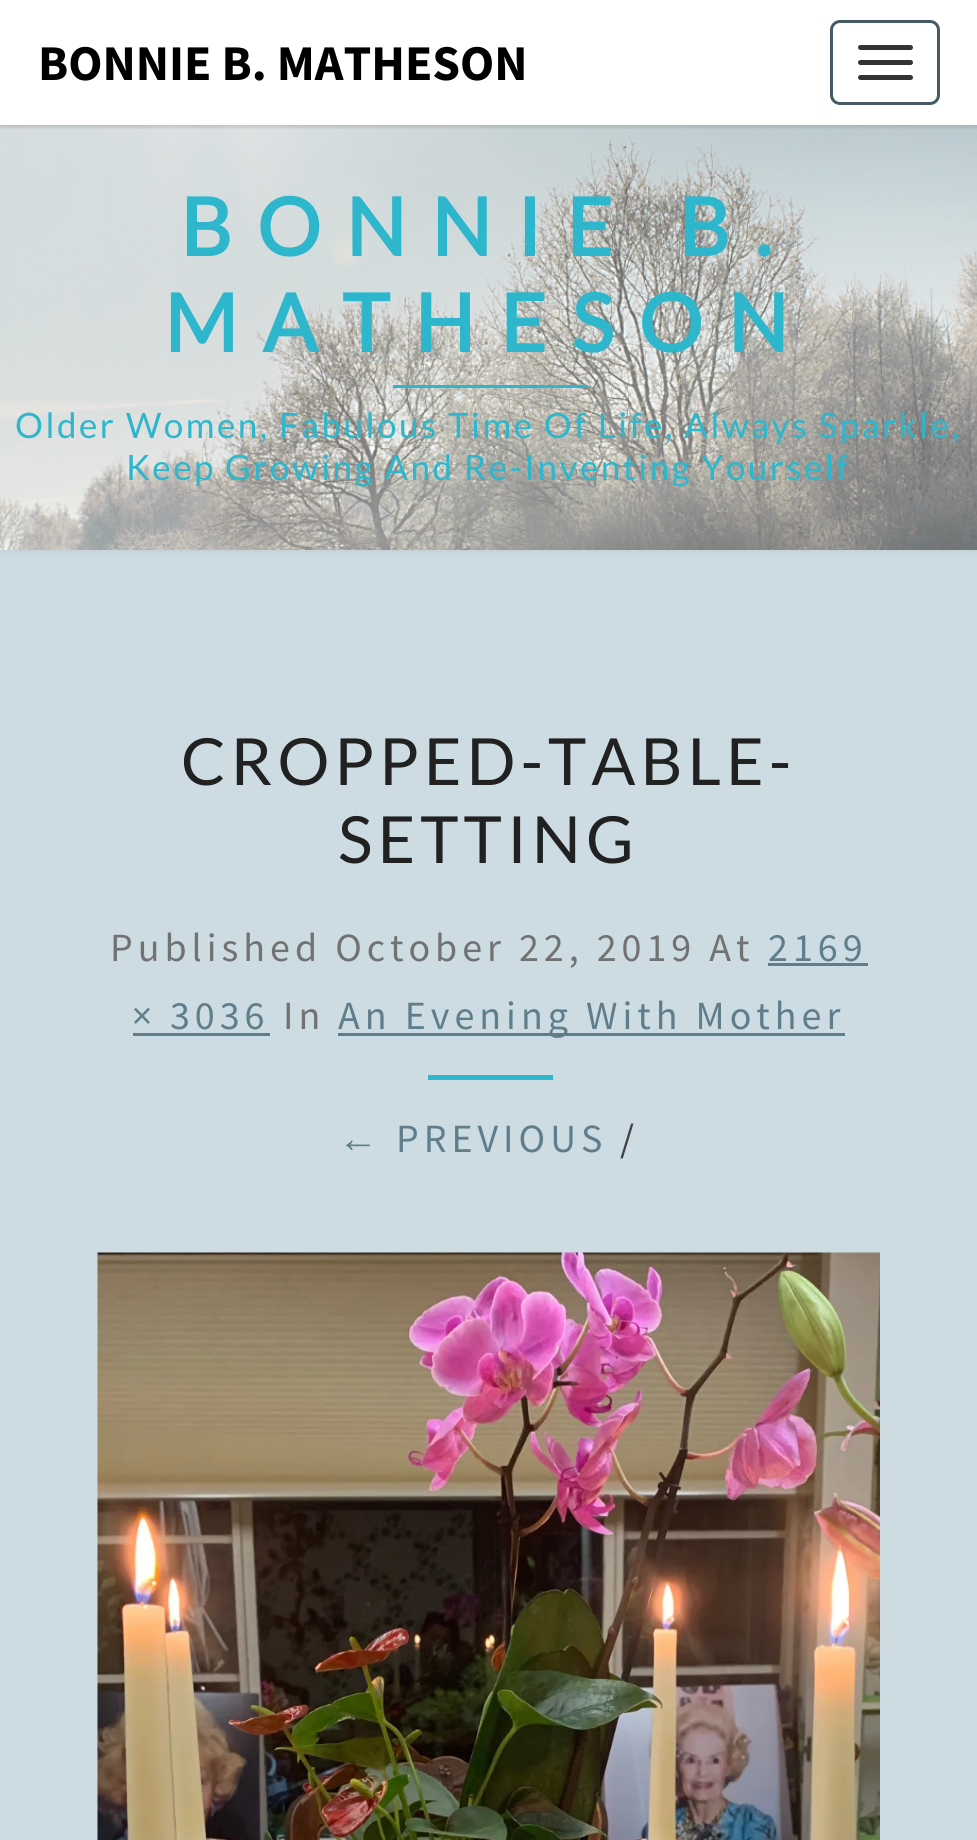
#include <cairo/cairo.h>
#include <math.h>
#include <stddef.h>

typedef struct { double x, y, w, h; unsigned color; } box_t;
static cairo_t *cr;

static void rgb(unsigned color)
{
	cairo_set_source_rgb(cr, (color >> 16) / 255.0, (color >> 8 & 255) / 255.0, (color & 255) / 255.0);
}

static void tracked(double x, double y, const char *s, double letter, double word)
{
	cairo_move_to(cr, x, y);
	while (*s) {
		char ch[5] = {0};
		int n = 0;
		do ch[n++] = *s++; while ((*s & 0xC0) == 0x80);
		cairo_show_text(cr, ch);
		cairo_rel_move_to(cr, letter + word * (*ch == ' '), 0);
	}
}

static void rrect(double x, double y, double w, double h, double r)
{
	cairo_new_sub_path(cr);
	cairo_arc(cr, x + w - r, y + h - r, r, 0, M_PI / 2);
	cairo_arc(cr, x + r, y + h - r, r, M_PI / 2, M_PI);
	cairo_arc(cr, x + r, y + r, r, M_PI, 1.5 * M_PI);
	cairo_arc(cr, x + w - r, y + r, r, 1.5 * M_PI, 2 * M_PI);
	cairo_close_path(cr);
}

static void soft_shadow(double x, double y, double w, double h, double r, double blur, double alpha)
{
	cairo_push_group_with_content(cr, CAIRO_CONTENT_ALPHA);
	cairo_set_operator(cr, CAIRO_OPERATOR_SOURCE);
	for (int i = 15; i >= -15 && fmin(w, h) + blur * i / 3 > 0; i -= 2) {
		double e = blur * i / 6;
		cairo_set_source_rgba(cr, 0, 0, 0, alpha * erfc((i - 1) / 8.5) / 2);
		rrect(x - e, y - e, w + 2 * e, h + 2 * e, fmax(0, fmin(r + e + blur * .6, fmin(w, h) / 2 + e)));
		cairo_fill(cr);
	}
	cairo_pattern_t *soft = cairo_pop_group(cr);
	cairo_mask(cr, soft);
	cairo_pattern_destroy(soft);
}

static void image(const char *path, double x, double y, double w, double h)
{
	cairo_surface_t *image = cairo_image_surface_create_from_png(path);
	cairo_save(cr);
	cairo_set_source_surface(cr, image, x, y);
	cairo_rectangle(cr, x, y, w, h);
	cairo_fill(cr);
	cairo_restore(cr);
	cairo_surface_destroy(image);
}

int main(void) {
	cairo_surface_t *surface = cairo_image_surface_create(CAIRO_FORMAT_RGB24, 977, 1840);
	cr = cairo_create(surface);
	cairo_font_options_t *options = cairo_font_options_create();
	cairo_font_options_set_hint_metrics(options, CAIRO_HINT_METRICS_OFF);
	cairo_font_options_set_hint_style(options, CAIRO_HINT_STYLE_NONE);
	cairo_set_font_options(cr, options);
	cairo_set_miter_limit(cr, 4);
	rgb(0xccdce2);
	cairo_paint(cr);
	rgb(0xb6b6b6);
	soft_shadow(-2, 123, 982, 430, 0, 2.5, 0.3);
	image("img/1.png", 0, 125, 977, 425);
	rgb(0x646464);
	soft_shadow(0, 3, 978, 125, 0, 1, 0.2);
	rgb(0xffffff);
	cairo_rectangle(cr, 0, 0, 977, 125);
	cairo_fill(cr);
	rrect(831.5, 21.5, 107, 82, 8.5);
	rgb(0x455a64);
	cairo_set_line_width(cr, 3);
	cairo_stroke(cr);
	rgb(0x333333);
	rrect(858, 45, 55, 5, 2.5);
	cairo_fill(cr);
	rrect(858, 60, 55, 5, 2.5);
	cairo_fill(cr);
	rrect(858, 75, 55, 5, 2.5);
	cairo_fill(cr);
	{
		static const box_t items[] = {
			{393, 385, 195, 3, 0x2eb7cc},
			{768, 963, 100, 3, 0x607d8b},
			{133, 1033, 137, 3, 0x607d8b},
			{338, 1033, 507, 3, 0x607d8b},
			{428, 1075, 125, 5, 0x2eb7cc},
		};
		for (size_t i = 0; i < sizeof items / sizeof *items; i++) {
			rgb(items[i].color);
			cairo_rectangle(cr, items[i].x, items[i].y, items[i].w, items[i].h);
			cairo_fill(cr);
		}
	}
	image("img/2.png", 97, 1252, 783, 588);
	cairo_select_font_face(cr, "Source Sans Pro", CAIRO_FONT_SLANT_NORMAL, CAIRO_FONT_WEIGHT_BOLD);
	cairo_set_font_size(cr, 50);
	rgb(0x000000);
	cairo_move_to(cr, 38, 80);
	cairo_show_text(cr, "BONNIE B. MATHESON");
	cairo_select_font_face(cr, "Lato", CAIRO_FONT_SLANT_NORMAL, CAIRO_FONT_WEIGHT_BOLD);
	cairo_set_font_size(cr, 80);
	rgb(0x2eb7cc);
	tracked(180, 256, "BONNIE B.", 25, 0);
	tracked(164, 352, "MATHESON", 25, 0);
	cairo_select_font_face(cr, "Lato", CAIRO_FONT_SLANT_NORMAL, CAIRO_FONT_WEIGHT_NORMAL);
	cairo_set_font_size(cr, 35);
	tracked(15, 438, "Older Women, Fabulous Time Of Life, Always Sparkle,", 2.5, 0);
	tracked(126, 480, "Keep Growing And Re-Inventing Yourself", 2.5, 0);
	cairo_set_font_size(cr, 65);
	rgb(0x212121);
	tracked(181, 785, "CROPPED-TABLE-", 5, 0);
	tracked(338, 863, "SETTING", 5, 0);
	cairo_select_font_face(cr, "Source Sans Pro", CAIRO_FONT_SLANT_NORMAL, CAIRO_FONT_WEIGHT_NORMAL);
	cairo_set_font_size(cr, 40);
	rgb(0x727272);
	tracked(110, 961, "Published October 22, 2019 At", 5, 0);
	rgb(0x607d8b);
	tracked(768, 961, "2169", 5, 0);
	tracked(132, 1029, "× 3036", 5, 0);
	rgb(0x727272);
	tracked(283, 1029, "In", 5, 0);
	rgb(0x607d8b);
	tracked(338, 1029, "An Evening With Mother", 5, 0);
	cairo_select_font_face(cr, "Liberation Sans", CAIRO_FONT_SLANT_NORMAL, CAIRO_FONT_WEIGHT_NORMAL);
	tracked(338, 1152, "←", 5, 0);
	cairo_select_font_face(cr, "Source Sans Pro", CAIRO_FONT_SLANT_NORMAL, CAIRO_FONT_WEIGHT_NORMAL);
	tracked(396, 1152, "PREVIOUS", 5, 0);
	rgb(0x424242);
	tracked(620, 1152, "/", 5, 0);
	cairo_surface_write_to_png(surface, "page.png");
	cairo_font_options_destroy(options);
	cairo_destroy(cr);
	cairo_surface_destroy(surface);
	return 0;
}
